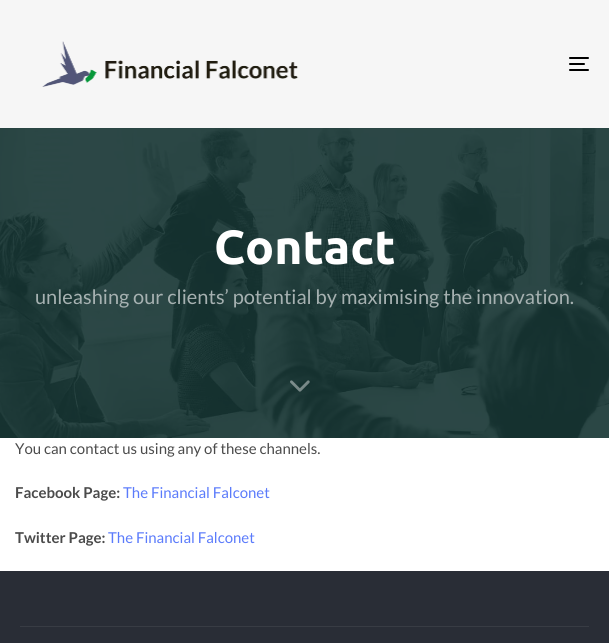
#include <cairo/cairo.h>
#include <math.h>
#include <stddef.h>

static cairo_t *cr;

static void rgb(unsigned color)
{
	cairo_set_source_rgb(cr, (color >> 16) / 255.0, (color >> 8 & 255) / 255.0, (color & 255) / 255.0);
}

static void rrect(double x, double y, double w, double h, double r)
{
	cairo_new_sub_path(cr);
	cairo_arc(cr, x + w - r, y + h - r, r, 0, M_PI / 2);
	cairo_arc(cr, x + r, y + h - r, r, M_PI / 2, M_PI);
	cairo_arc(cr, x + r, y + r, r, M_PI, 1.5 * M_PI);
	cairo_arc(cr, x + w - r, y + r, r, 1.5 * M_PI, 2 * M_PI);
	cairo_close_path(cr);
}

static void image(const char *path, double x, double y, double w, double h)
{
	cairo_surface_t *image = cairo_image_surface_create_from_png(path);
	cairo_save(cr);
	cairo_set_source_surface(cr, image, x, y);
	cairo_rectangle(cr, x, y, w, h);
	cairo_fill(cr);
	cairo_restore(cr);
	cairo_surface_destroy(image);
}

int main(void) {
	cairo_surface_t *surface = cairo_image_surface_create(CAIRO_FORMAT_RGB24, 609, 643);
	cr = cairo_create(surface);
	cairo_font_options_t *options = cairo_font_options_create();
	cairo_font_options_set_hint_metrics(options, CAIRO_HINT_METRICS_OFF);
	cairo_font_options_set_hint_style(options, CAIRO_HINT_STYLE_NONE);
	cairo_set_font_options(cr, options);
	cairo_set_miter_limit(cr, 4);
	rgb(0xffffff);
	cairo_paint(cr);
	rgb(0xf6f6f6);
	cairo_rectangle(cr, 0, 0, 609, 128);
	cairo_fill(cr);
	image("img/1.png", 42, 41, 257, 46);
	rgb(0x000000);
	rrect(569, 57, 20, 2, 1);
	cairo_fill(cr);
	rrect(569, 63, 16, 2, 1);
	cairo_fill(cr);
	rrect(569, 69, 20, 2, 1);
	cairo_fill(cr);
	image("img/2.png", 0, 128, 609, 310);
	image("img/3.png", 290, 380, 20, 12);
	rgb(0x292d36);
	cairo_rectangle(cr, 0, 571, 609, 72);
	cairo_fill(cr);
	rgb(0x383c44);
	cairo_rectangle(cr, 20, 626, 569, 1);
	cairo_fill(cr);
	cairo_select_font_face(cr, "Ubuntu", CAIRO_FONT_SLANT_NORMAL, CAIRO_FONT_WEIGHT_BOLD);
	cairo_set_font_size(cr, 48);
	rgb(0xffffff);
	cairo_move_to(cr, 214, 264);
	cairo_show_text(cr, "Contact");
	cairo_select_font_face(cr, "Lato", CAIRO_FONT_SLANT_NORMAL, CAIRO_FONT_WEIGHT_NORMAL);
	cairo_set_font_size(cr, 20);
	rgb(0xa6b1b1);
	cairo_move_to(cr, 35, 304);
	cairo_show_text(cr, "unleashing our clients’ potential by maximising the innovation.");
	cairo_set_font_size(cr, 15);
	rgb(0x4b4b4b);
	cairo_move_to(cr, 15, 454);
	cairo_show_text(cr, "You can contact us using any of these channels.");
	cairo_select_font_face(cr, "Lato", CAIRO_FONT_SLANT_NORMAL, CAIRO_FONT_WEIGHT_BOLD);
	cairo_move_to(cr, 15, 498);
	cairo_show_text(cr, "Facebook Page:");
	cairo_select_font_face(cr, "Lato", CAIRO_FONT_SLANT_NORMAL, CAIRO_FONT_WEIGHT_NORMAL);
	rgb(0x5b7bfb);
	cairo_move_to(cr, 123, 498);
	cairo_show_text(cr, "The Financial Falconet");
	cairo_select_font_face(cr, "Lato", CAIRO_FONT_SLANT_NORMAL, CAIRO_FONT_WEIGHT_BOLD);
	rgb(0x4b4b4b);
	cairo_move_to(cr, 15, 543);
	cairo_show_text(cr, "Twitter Page:");
	cairo_select_font_face(cr, "Lato", CAIRO_FONT_SLANT_NORMAL, CAIRO_FONT_WEIGHT_NORMAL);
	rgb(0x5b7bfb);
	cairo_move_to(cr, 108, 543);
	cairo_show_text(cr, "The Financial Falconet");
	cairo_surface_write_to_png(surface, "page.png");
	cairo_font_options_destroy(options);
	cairo_destroy(cr);
	cairo_surface_destroy(surface);
	return 0;
}
